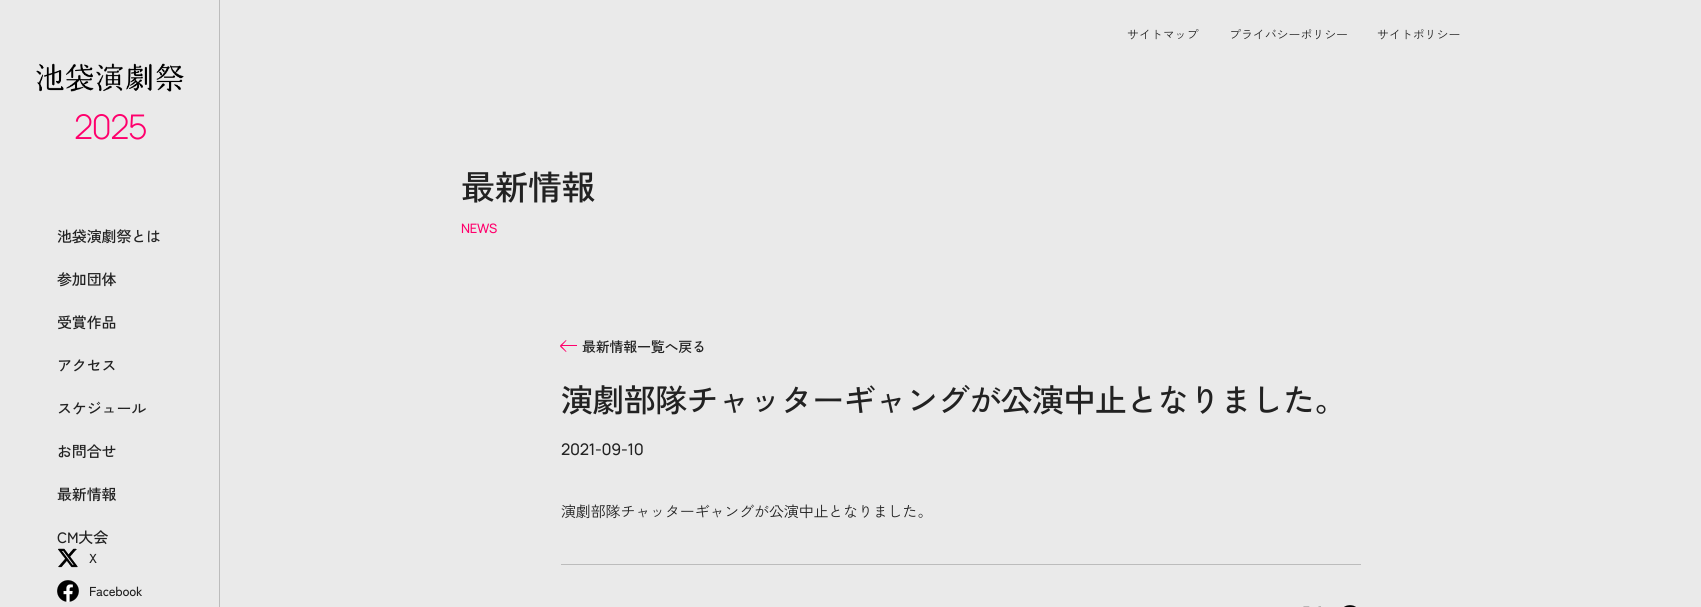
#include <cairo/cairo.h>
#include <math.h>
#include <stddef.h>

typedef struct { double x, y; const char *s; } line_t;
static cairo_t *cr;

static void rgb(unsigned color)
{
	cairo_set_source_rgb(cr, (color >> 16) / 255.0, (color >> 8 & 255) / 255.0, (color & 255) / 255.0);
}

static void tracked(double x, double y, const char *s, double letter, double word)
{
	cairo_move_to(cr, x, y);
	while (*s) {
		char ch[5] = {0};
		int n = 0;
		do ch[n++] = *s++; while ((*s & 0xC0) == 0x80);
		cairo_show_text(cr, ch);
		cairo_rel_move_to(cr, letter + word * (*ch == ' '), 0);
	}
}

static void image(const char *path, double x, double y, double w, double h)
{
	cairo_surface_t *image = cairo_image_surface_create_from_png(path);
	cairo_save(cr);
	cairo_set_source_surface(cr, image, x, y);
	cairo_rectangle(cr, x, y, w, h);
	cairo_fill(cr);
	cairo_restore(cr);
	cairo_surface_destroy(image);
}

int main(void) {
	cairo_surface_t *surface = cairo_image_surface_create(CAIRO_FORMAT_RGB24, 1701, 607);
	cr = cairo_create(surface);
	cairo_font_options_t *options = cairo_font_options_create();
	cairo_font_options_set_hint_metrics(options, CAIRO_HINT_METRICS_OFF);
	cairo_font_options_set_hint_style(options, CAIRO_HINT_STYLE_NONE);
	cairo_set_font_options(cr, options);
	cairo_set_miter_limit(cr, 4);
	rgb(0xeaeaea);
	cairo_paint(cr);
	rgb(0xbcbcbc);
	cairo_rectangle(cr, 219, 0, 1, 607);
	cairo_fill(cr);
	image("img/1.png", 36, 63, 148, 29);
	image("img/2.png", 58, 548, 20, 20);
	image("img/3.png", 57, 580, 22, 22);
	cairo_rectangle(cr, 561, 564, 800, 1);
	cairo_fill(cr);
	rgb(0xff006c);
	cairo_rectangle(cr, 561, 345, 16, 1);
	cairo_fill(cr);
	cairo_new_path(cr);
	cairo_move_to(cr, 561, 345.5);
	cairo_line_to(cr, 566.5, 351.5);
	cairo_line_to(cr, 566, 352);
	cairo_line_to(cr, 560, 346.5);
	cairo_close_path(cr);
	cairo_fill(cr);
	cairo_new_path(cr);
	cairo_move_to(cr, 560, 345.5);
	cairo_line_to(cr, 566, 340);
	cairo_line_to(cr, 566.5, 340.5);
	cairo_line_to(cr, 561, 346.5);
	cairo_close_path(cr);
	cairo_fill(cr);
	image("img/4.png", 1303, 606, 18, 1);
	image("img/5.png", 1344, 605, 12, 2);
	cairo_select_font_face(cr, "Manrope Light", CAIRO_FONT_SLANT_NORMAL, CAIRO_FONT_WEIGHT_NORMAL);
	cairo_set_font_size(cr, 34);
	tracked(74, 139, "2025", -1.5, 0);
	cairo_select_font_face(cr, "Zen Kaku Gothic New Medium", CAIRO_FONT_SLANT_NORMAL, CAIRO_FONT_WEIGHT_NORMAL);
	cairo_set_font_size(cr, 15);
	rgb(0x222222);
	{
		static const line_t items[] = {
			{57, 242, "池袋演劇祭とは"},
			{57, 285, "参加団体"},
			{57, 328, "受賞作品"},
			{57, 371, "アクセス"},
			{57, 414, "スケジュール"},
			{57, 457, "お問合せ"},
			{57, 500, "最新情報"},
			{57, 543, "CM大会"},
		};
		for (size_t i = 0; i < sizeof items / sizeof *items; i++) {
			tracked(items[i].x, items[i].y, items[i].s, -0.15, 0);
		}
	}
	cairo_set_font_size(cr, 13);
	tracked(89, 563, "X", -0.25, 0);
	tracked(89, 596, "Facebook", -0.25, 0);
	cairo_select_font_face(cr, "Zen Kaku Gothic New", CAIRO_FONT_SLANT_NORMAL, CAIRO_FONT_WEIGHT_NORMAL);
	cairo_set_font_size(cr, 12);
	{
		static const line_t items[] = {
			{1127, 39, "サイトマップ"},
			{1229, 39, "プライバシーポリシー"},
			{1377, 39, "サイトポリシー"},
		};
		for (size_t i = 0; i < sizeof items / sizeof *items; i++) {
			tracked(items[i].x, items[i].y, items[i].s, -0.1, 0);
		}
	}
	cairo_select_font_face(cr, "Zen Kaku Gothic New Medium", CAIRO_FONT_SLANT_NORMAL, CAIRO_FONT_WEIGHT_NORMAL);
	cairo_set_font_size(cr, 34);
	tracked(461, 200, "最新情報", -0.5, 0);
	cairo_select_font_face(cr, "Manrope Medium", CAIRO_FONT_SLANT_NORMAL, CAIRO_FONT_WEIGHT_NORMAL);
	cairo_set_font_size(cr, 13);
	rgb(0xff006c);
	tracked(461, 233, "NEWS", -0.25, 0);
	cairo_select_font_face(cr, "Zen Kaku Gothic New Medium", CAIRO_FONT_SLANT_NORMAL, CAIRO_FONT_WEIGHT_NORMAL);
	cairo_set_font_size(cr, 14);
	rgb(0x222222);
	tracked(582, 352, "最新情報一覧へ戻る", -0.25, 0);
	cairo_set_font_size(cr, 32);
	tracked(561, 412, "演劇部隊チャッターギャングが公演中止となりました。", -0.6, 0);
	cairo_select_font_face(cr, "Manrope Medium", CAIRO_FONT_SLANT_NORMAL, CAIRO_FONT_WEIGHT_NORMAL);
	cairo_set_font_size(cr, 16);
	tracked(561, 455, "2021-09-10", -0.25, 0);
	cairo_select_font_face(cr, "Zen Kaku Gothic New", CAIRO_FONT_SLANT_NORMAL, CAIRO_FONT_WEIGHT_NORMAL);
	cairo_set_font_size(cr, 15);
	tracked(561, 517, "演劇部隊チャッターギャングが公演中止となりました。", -0.15, 0);
	cairo_surface_write_to_png(surface, "page.png");
	cairo_font_options_destroy(options);
	cairo_destroy(cr);
	cairo_surface_destroy(surface);
	return 0;
}
